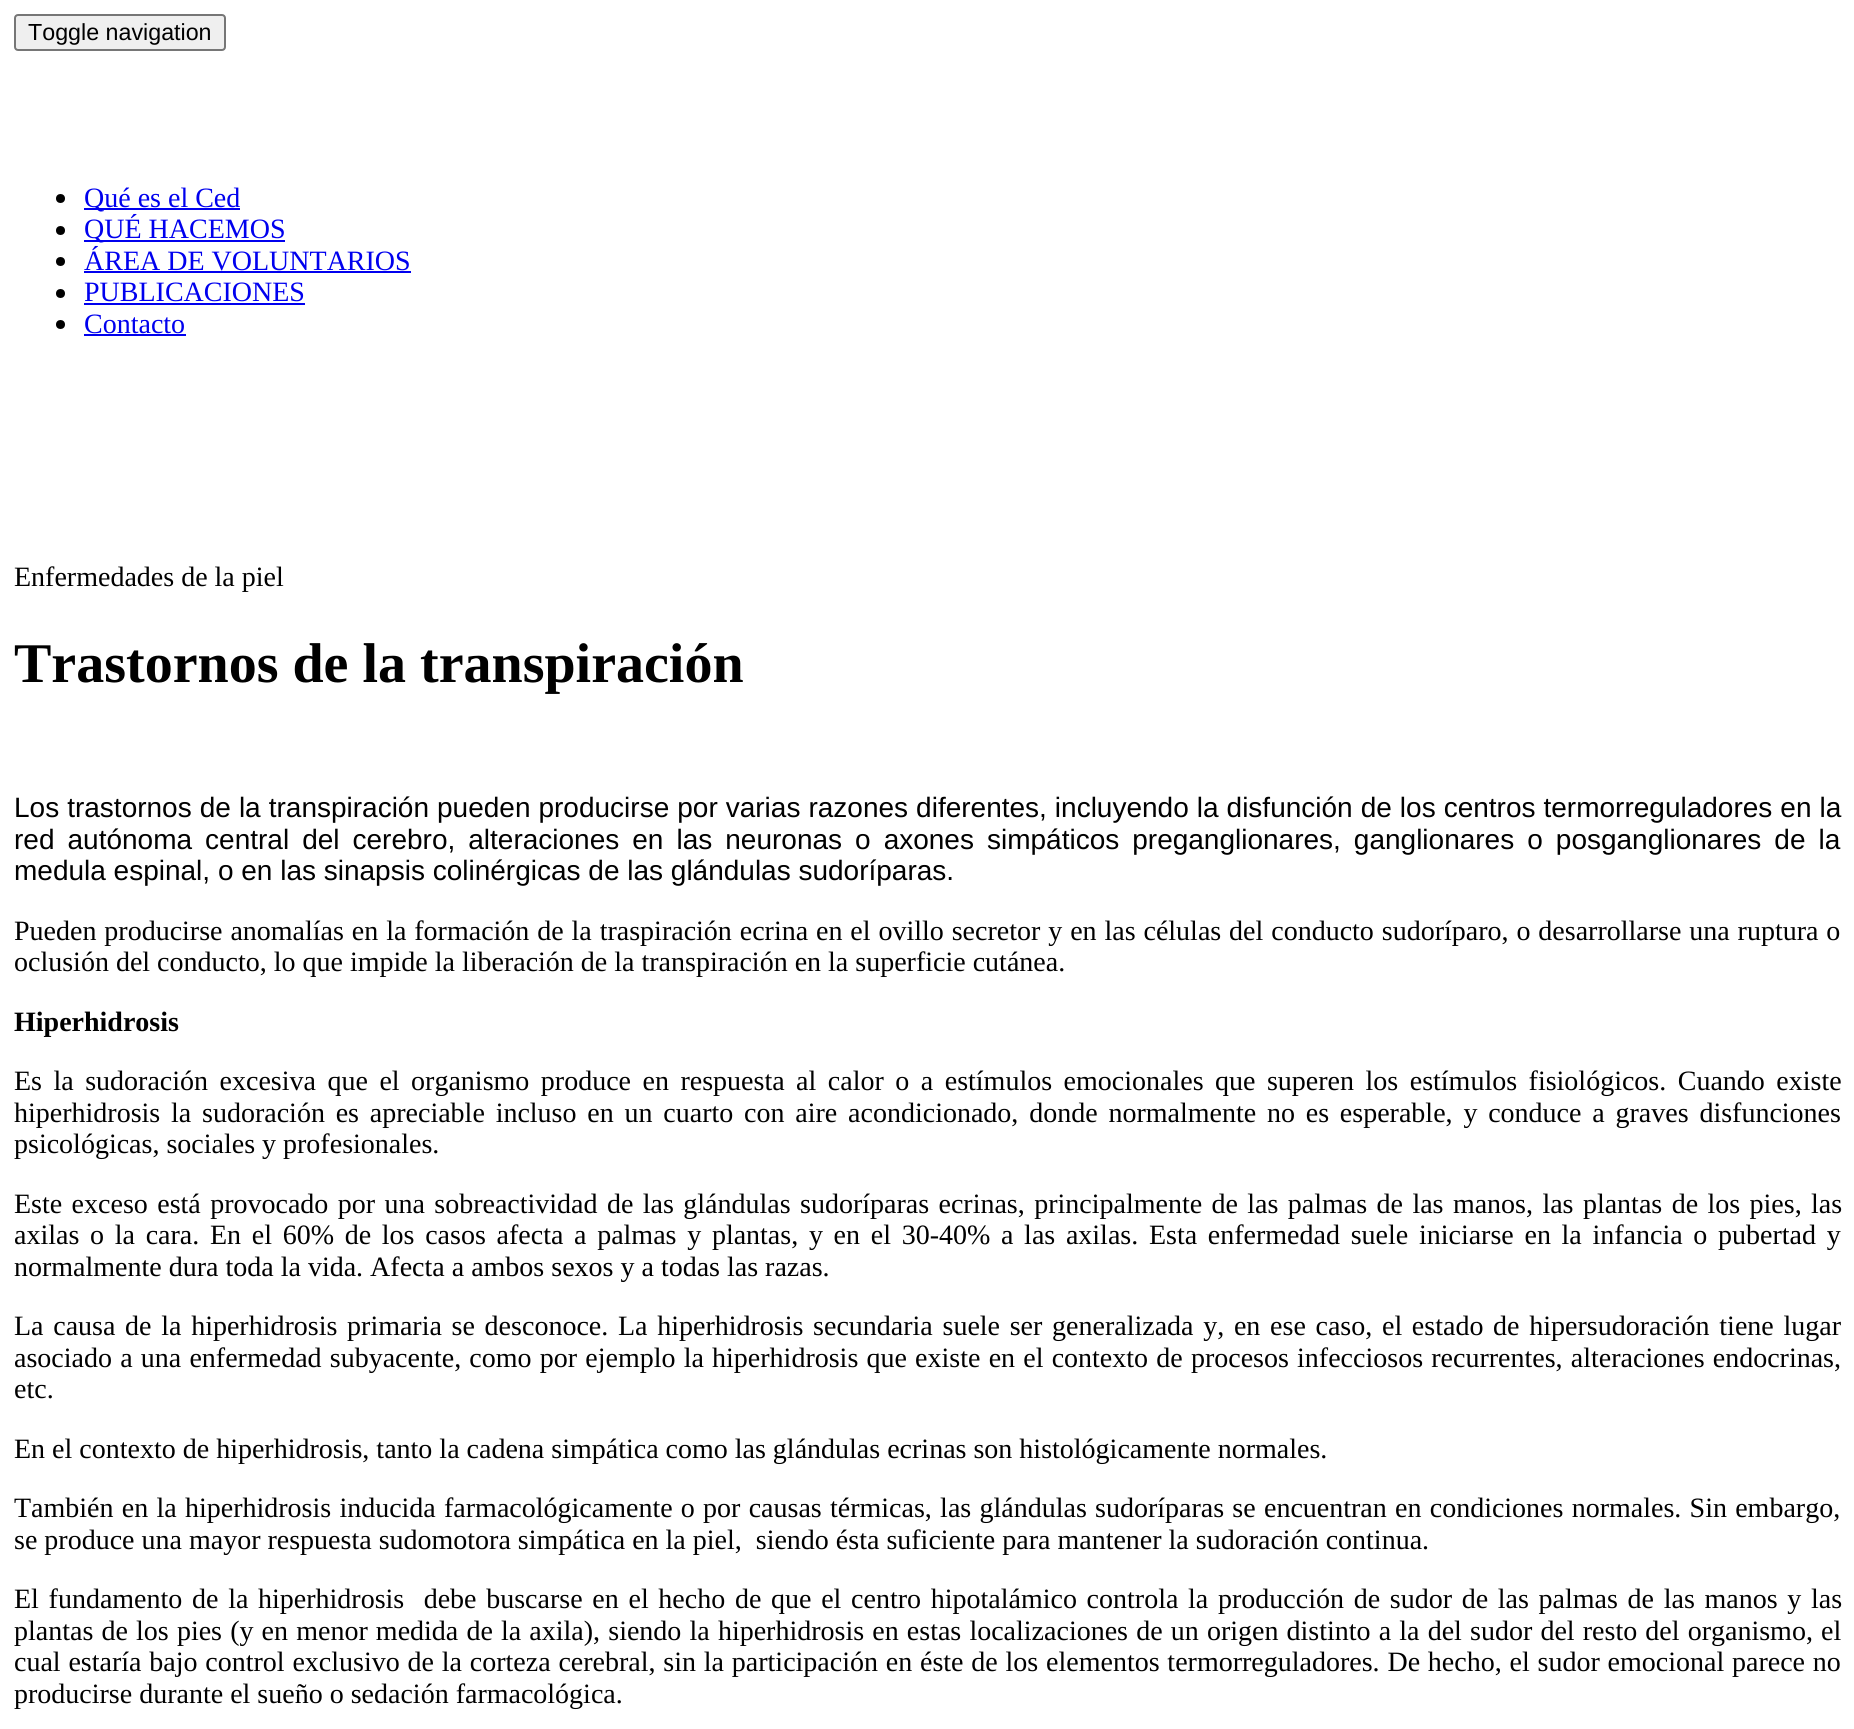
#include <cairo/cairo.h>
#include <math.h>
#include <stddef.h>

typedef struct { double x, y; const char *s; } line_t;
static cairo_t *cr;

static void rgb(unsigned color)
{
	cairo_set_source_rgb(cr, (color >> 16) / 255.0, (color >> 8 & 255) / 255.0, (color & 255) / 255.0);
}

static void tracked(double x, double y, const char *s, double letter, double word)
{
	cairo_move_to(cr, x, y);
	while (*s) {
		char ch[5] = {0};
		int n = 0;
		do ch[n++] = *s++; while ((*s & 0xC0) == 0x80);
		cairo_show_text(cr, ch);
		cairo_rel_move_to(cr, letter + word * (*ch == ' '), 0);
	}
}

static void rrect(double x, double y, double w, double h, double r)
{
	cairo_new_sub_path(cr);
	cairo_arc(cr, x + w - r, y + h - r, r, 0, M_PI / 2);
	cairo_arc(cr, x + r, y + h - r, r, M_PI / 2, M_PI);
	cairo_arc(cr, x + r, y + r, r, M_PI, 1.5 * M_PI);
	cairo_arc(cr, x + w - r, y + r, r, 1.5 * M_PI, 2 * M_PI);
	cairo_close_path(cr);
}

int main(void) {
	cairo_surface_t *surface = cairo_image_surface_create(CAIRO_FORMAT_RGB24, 1854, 1729);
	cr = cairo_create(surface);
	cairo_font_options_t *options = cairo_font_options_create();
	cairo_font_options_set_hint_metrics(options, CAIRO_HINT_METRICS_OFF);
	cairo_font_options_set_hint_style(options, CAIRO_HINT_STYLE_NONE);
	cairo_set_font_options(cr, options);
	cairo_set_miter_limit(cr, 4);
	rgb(0xffffff);
	cairo_paint(cr);
	rgb(0xefefef);
	rrect(15, 15, 210, 35, 3);
	cairo_fill_preserve(cr);
	rgb(0x767676);
	cairo_stroke(cr);
	rgb(0x000000);
	cairo_arc(cr, 60.5, 198.5, 4.5, 0, 2 * M_PI);
	cairo_fill(cr);
	rgb(0x0000ee);
	cairo_rectangle(cr, 84, 208, 156, 2);
	cairo_fill(cr);
	rgb(0x000000);
	cairo_arc(cr, 60.5, 230.5, 4.5, 0, 2 * M_PI);
	cairo_fill(cr);
	rgb(0x0000ee);
	cairo_rectangle(cr, 84, 240, 201, 2);
	cairo_fill(cr);
	rgb(0x000000);
	cairo_arc(cr, 60.5, 261.5, 4.5, 0, 2 * M_PI);
	cairo_fill(cr);
	rgb(0x0000ee);
	cairo_rectangle(cr, 84, 271, 327, 2);
	cairo_fill(cr);
	rgb(0x000000);
	cairo_arc(cr, 60.5, 293.5, 4.5, 0, 2 * M_PI);
	cairo_fill(cr);
	rgb(0x0000ee);
	cairo_rectangle(cr, 84, 303, 221, 2);
	cairo_fill(cr);
	rgb(0x000000);
	cairo_arc(cr, 60.5, 324.5, 4.5, 0, 2 * M_PI);
	cairo_fill(cr);
	rgb(0x0000ee);
	cairo_rectangle(cr, 84, 334, 102, 2);
	cairo_fill(cr);
	cairo_select_font_face(cr, "Liberation Sans", CAIRO_FONT_SLANT_NORMAL, CAIRO_FONT_WEIGHT_NORMAL);
	cairo_set_font_size(cr, 23.25);
	rgb(0x000000);
	cairo_move_to(cr, 28, 40);
	cairo_show_text(cr, "Toggle navigation");
	cairo_select_font_face(cr, "Liberation Serif", CAIRO_FONT_SLANT_NORMAL, CAIRO_FONT_WEIGHT_NORMAL);
	cairo_set_font_size(cr, 28);
	rgb(0x0000ee);
	{
		static const line_t items[] = {
			{84, 207, "Qué es el Ced"},
			{84, 238, "QUÉ HACEMOS"},
			{84, 270, "ÁREA DE VOLUNTARIOS"},
			{84, 301, "PUBLICACIONES"},
			{84, 333, "Contacto"},
		};
		for (size_t i = 0; i < sizeof items / sizeof *items; i++) {
			cairo_move_to(cr, items[i].x, items[i].y);
			cairo_show_text(cr, items[i].s);
		}
	}
	rgb(0x000000);
	cairo_move_to(cr, 14, 586);
	cairo_show_text(cr, "Enfermedades de la piel");
	cairo_select_font_face(cr, "Liberation Serif", CAIRO_FONT_SLANT_NORMAL, CAIRO_FONT_WEIGHT_BOLD);
	cairo_set_font_size(cr, 56);
	cairo_move_to(cr, 14, 682);
	cairo_show_text(cr, "Trastornos de la transpiración");
	cairo_select_font_face(cr, "Liberation Sans", CAIRO_FONT_SLANT_NORMAL, CAIRO_FONT_WEIGHT_NORMAL);
	cairo_set_font_size(cr, 28);
	tracked(14, 817, "Los trastornos de la transpiración pueden producirse por varias razones diferentes, incluyendo la disfunción de los centros termorreguladores en la", 0, 0.25);
	tracked(14, 849, "red autónoma central del cerebro, alteraciones en las neuronas o axones simpáticos preganglionares, ganglionares o posganglionares de la", 0, 5.25);
	cairo_move_to(cr, 14, 880);
	cairo_show_text(cr, "medula espinal, o en las sinapsis colinérgicas de las glándulas sudoríparas.");
	cairo_select_font_face(cr, "Liberation Serif", CAIRO_FONT_SLANT_NORMAL, CAIRO_FONT_WEIGHT_NORMAL);
	tracked(14, 940, "Pueden producirse anomalías en la formación de la traspiración ecrina en el ovillo secretor y en las células del conducto sudoríparo, o desarrollarse una ruptura o", 0, 0.9);
	cairo_move_to(cr, 14, 971);
	cairo_show_text(cr, "oclusión del conducto, lo que impide la liberación de la transpiración en la superficie cutánea.");
	cairo_select_font_face(cr, "Liberation Serif", CAIRO_FONT_SLANT_NORMAL, CAIRO_FONT_WEIGHT_BOLD);
	cairo_move_to(cr, 14, 1031);
	cairo_show_text(cr, "Hiperhidrosis");
	cairo_select_font_face(cr, "Liberation Serif", CAIRO_FONT_SLANT_NORMAL, CAIRO_FONT_WEIGHT_NORMAL);
	tracked(14, 1090, "Es la sudoración excesiva que el organismo produce en respuesta al calor o a estímulos emocionales que superen los estímulos fisiológicos. Cuando existe", 0, 4.5);
	tracked(14, 1122, "hiperhidrosis la sudoración es apreciable incluso en un cuarto con aire acondicionado, donde normalmente no es esperable, y conduce a graves disfunciones", 0, 3.8);
	cairo_move_to(cr, 14, 1153);
	cairo_show_text(cr, "psicológicas, sociales y profesionales.");
	tracked(14, 1213, "Este exceso está provocado por una sobreactividad de las glándulas sudoríparas ecrinas, principalmente de las palmas de las manos, las plantas de los pies, las", 0, 2.4);
	tracked(14, 1244, "axilas o la cara. En el 60% de los casos afecta a palmas y plantas, y en el 30-40% a las axilas. Esta enfermedad suele iniciarse en la infancia o pubertad y", 0, 3.7);
	cairo_move_to(cr, 14, 1276);
	cairo_show_text(cr, "normalmente dura toda la vida. Afecta a ambos sexos y a todas las razas.");
	tracked(14, 1335, "La causa de la hiperhidrosis primaria se desconoce. La hiperhidrosis secundaria suele ser generalizada y, en ese caso, el estado de hipersudoración tiene lugar", 0, 2.7);
	tracked(14, 1367, "asociado a una enfermedad subyacente, como por ejemplo la hiperhidrosis que existe en el contexto de procesos infecciosos recurrentes, alteraciones endocrinas,", 0, 1.2);
	cairo_move_to(cr, 14, 1398);
	cairo_show_text(cr, "etc.");
	cairo_move_to(cr, 14, 1458);
	cairo_show_text(cr, "En el contexto de hiperhidrosis, tanto la cadena simpática como las glándulas ecrinas son histológicamente normales.");
	tracked(14, 1517, "También en la hiperhidrosis inducida farmacológicamente o por causas térmicas, las glándulas sudoríparas se encuentran en condiciones normales. Sin embargo,", 0, 1.25);
	cairo_move_to(cr, 14, 1549);
	cairo_show_text(cr, "se produce una mayor respuesta sudomotora simpática en la piel,  siendo ésta suficiente para mantener la sudoración continua.");
	tracked(14, 1608, "El fundamento de la hiperhidrosis  debe buscarse en el hecho de que el centro hipotalámico controla la producción de sudor de las palmas de las manos y las", 0, 2.7);
	tracked(14, 1640, "plantas de los pies (y en menor medida de la axila), siendo la hiperhidrosis en estas localizaciones de un origen distinto a la del sudor del resto del organismo, el", 0, 1.15);
	tracked(14, 1671, "cual estaría bajo control exclusivo de la corteza cerebral, sin la participación en éste de los elementos termorreguladores. De hecho, el sudor emocional parece no", 0, 0.8);
	cairo_move_to(cr, 14, 1703);
	cairo_show_text(cr, "producirse durante el sueño o sedación farmacológica.");
	cairo_surface_write_to_png(surface, "page.png");
	cairo_font_options_destroy(options);
	cairo_destroy(cr);
	cairo_surface_destroy(surface);
	return 0;
}
